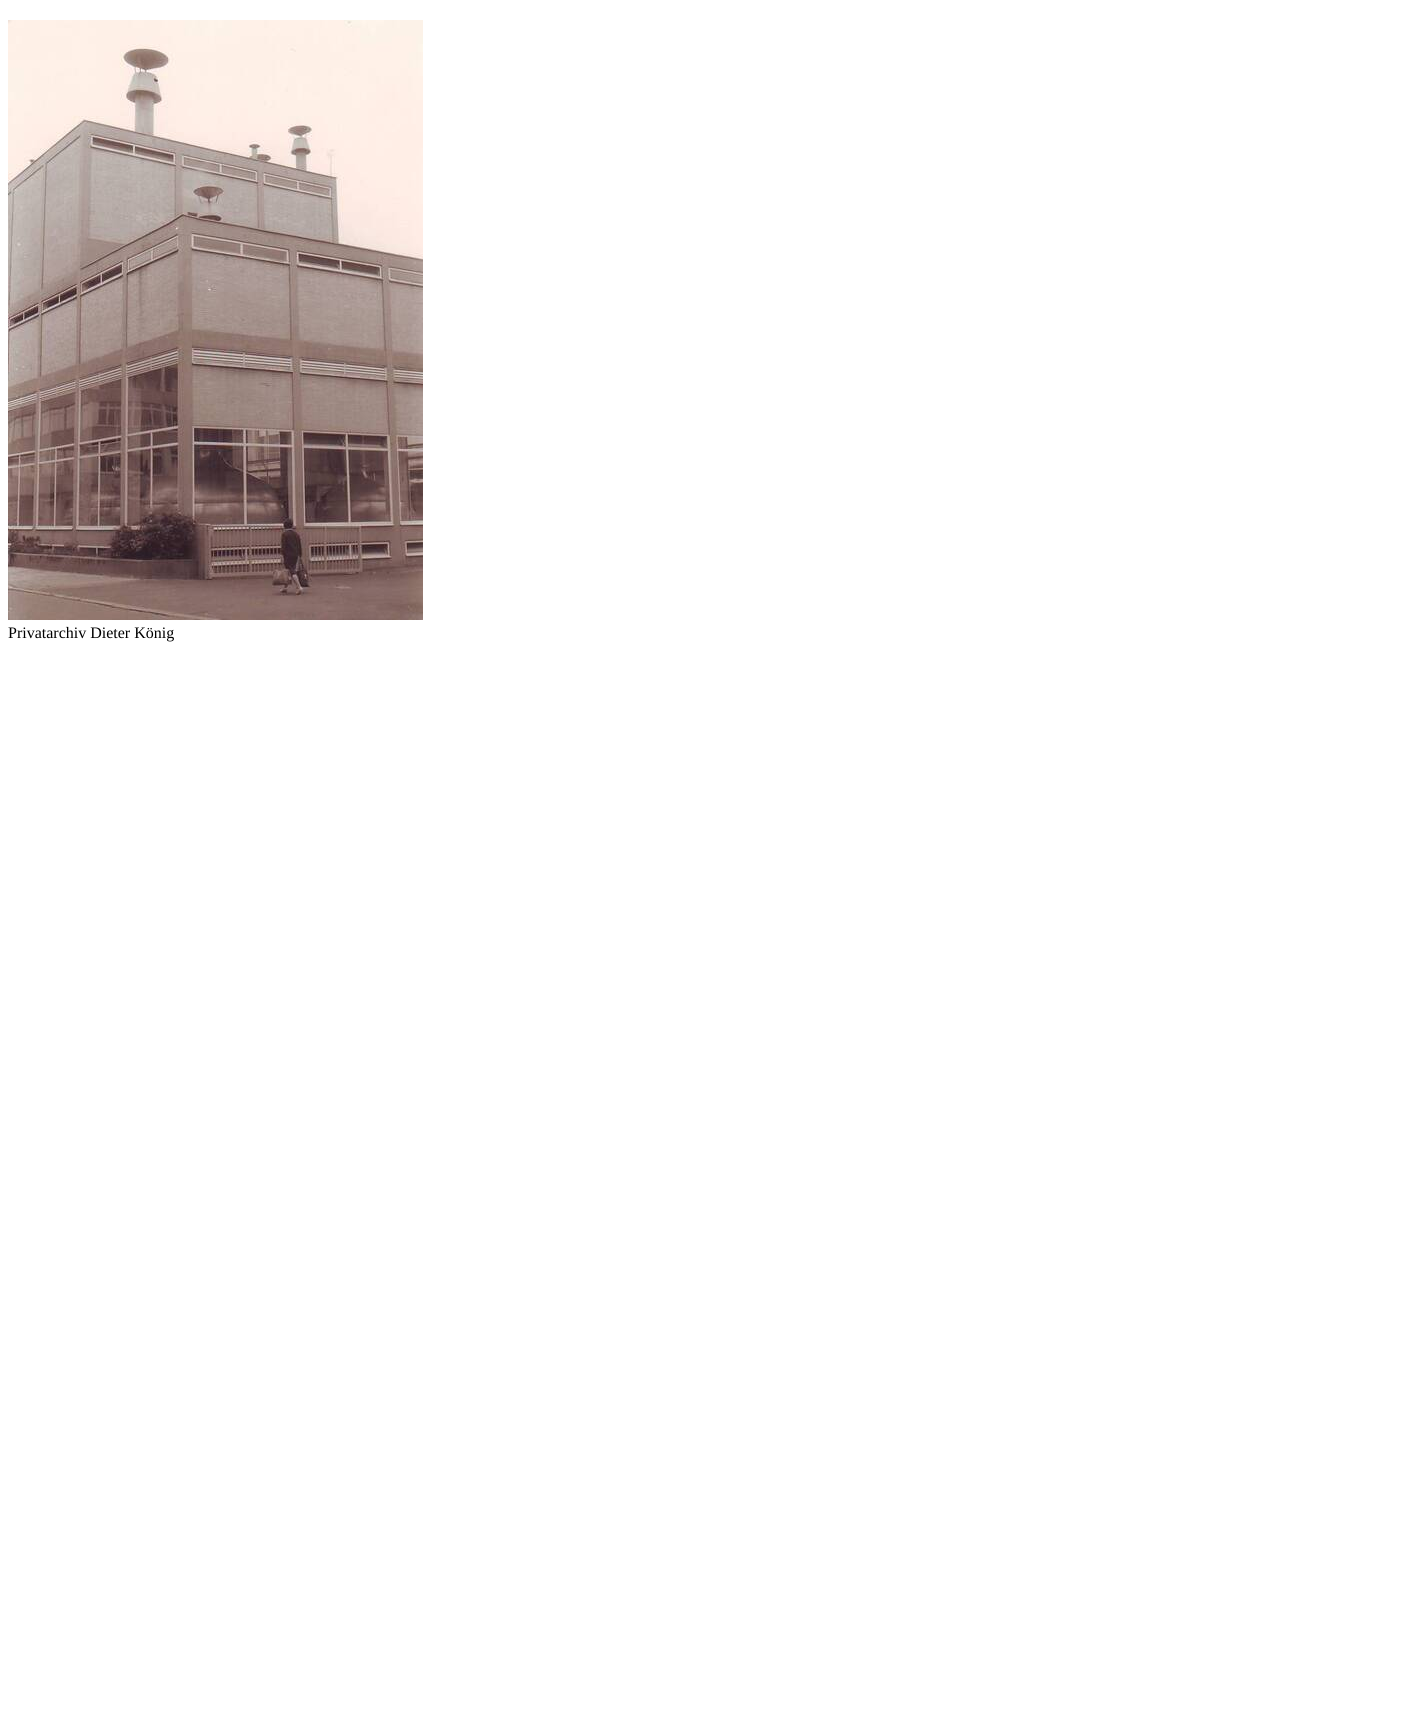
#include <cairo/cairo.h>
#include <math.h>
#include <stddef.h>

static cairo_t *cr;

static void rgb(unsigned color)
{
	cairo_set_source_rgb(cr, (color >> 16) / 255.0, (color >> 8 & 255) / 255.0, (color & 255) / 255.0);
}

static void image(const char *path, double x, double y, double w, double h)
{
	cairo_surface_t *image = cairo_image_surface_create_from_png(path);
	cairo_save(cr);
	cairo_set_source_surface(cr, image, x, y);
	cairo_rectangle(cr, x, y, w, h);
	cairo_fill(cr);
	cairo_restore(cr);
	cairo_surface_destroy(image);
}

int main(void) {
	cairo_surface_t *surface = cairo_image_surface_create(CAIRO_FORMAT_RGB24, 1404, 1711);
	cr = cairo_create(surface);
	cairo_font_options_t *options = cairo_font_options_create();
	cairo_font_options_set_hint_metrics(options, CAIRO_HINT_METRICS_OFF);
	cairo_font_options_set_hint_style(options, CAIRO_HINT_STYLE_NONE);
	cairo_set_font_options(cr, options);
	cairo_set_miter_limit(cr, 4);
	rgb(0xffffff);
	cairo_paint(cr);
	image("img/1.png", 8, 20, 415, 600);
	cairo_select_font_face(cr, "Liberation Serif", CAIRO_FONT_SLANT_NORMAL, CAIRO_FONT_WEIGHT_NORMAL);
	cairo_set_font_size(cr, 16);
	rgb(0x000000);
	cairo_move_to(cr, 8, 638);
	cairo_show_text(cr, "Privatarchiv Dieter König");
	cairo_surface_write_to_png(surface, "page.png");
	cairo_font_options_destroy(options);
	cairo_destroy(cr);
	cairo_surface_destroy(surface);
	return 0;
}
